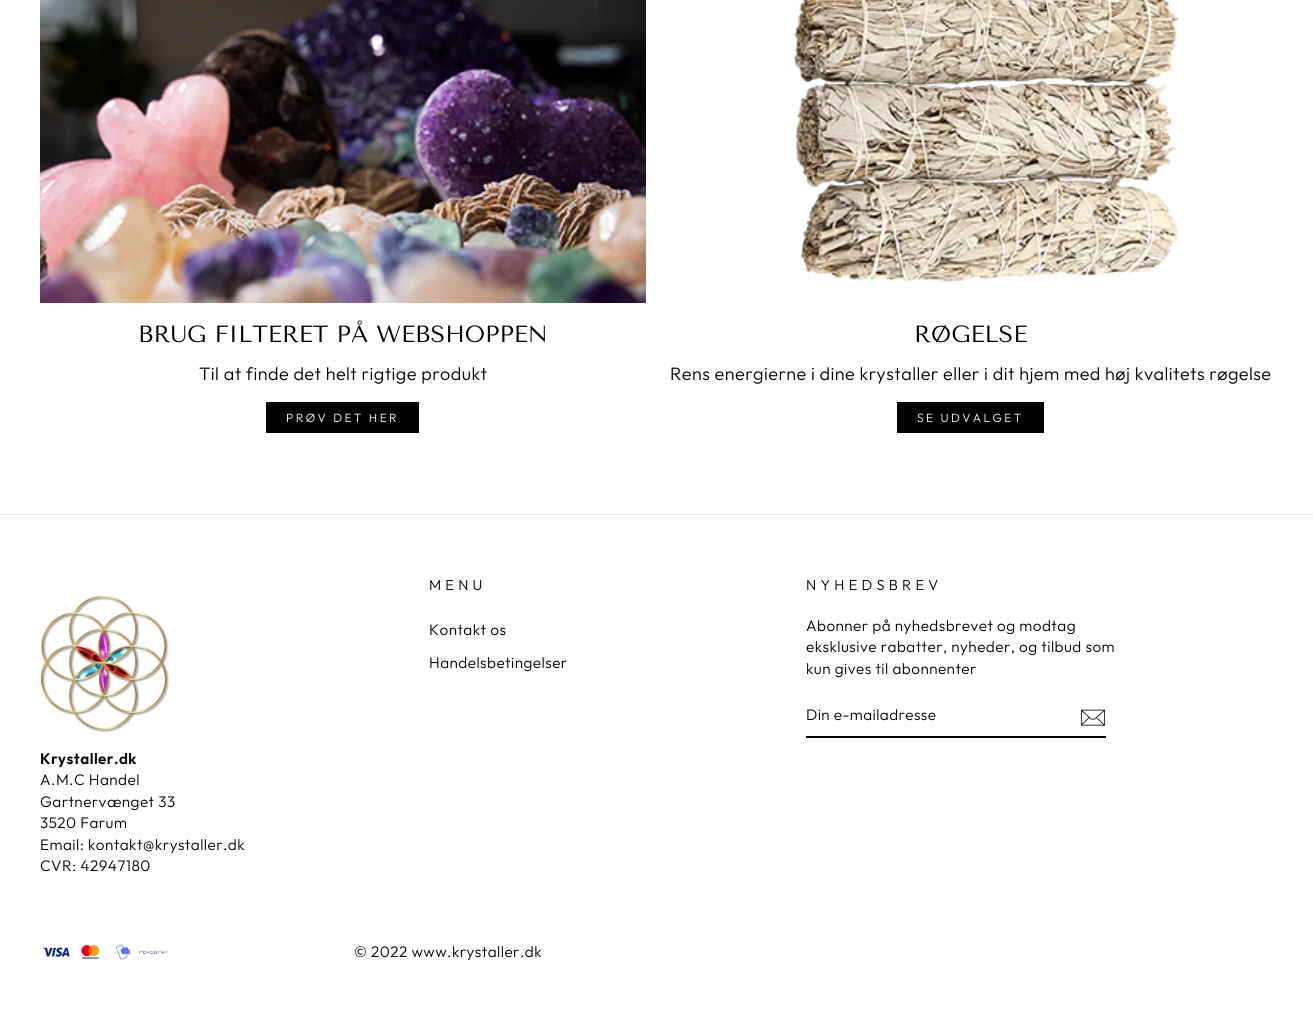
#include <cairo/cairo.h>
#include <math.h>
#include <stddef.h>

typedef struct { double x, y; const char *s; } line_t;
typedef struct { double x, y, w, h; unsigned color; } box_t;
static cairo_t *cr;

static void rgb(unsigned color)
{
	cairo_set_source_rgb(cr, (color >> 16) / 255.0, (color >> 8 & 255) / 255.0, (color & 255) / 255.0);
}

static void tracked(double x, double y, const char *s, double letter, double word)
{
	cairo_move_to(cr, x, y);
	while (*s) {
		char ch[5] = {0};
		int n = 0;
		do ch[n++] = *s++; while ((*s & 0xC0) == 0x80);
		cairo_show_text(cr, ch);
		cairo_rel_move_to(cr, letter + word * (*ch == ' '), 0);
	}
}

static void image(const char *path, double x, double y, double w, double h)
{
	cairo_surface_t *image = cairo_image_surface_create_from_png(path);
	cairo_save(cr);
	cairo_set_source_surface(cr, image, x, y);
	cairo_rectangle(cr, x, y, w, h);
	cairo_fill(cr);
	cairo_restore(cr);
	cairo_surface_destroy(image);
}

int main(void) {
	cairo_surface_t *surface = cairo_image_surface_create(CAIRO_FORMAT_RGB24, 1313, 1017);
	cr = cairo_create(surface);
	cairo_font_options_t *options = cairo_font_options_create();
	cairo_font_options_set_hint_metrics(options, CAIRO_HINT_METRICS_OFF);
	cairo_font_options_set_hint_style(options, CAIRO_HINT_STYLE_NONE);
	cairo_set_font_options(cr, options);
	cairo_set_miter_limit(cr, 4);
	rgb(0xffffff);
	cairo_paint(cr);
	image("img/1.png", 40, 0, 606, 303);
	rgb(0x000000);
	cairo_rectangle(cr, 266, 402, 153, 31);
	cairo_fill(cr);
	image("img/2.png", 793, 0, 386, 283);
	{
		static const box_t items[] = {
			{897, 402, 147, 31, 0x000000},
			{0, 514, 1313, 1, 0xe8e8e1},
			{806, 736, 300, 2, 0x000000},
		};
		for (size_t i = 0; i < sizeof items / sizeof *items; i++) {
			rgb(items[i].color);
			cairo_rectangle(cr, items[i].x, items[i].y, items[i].w, items[i].h);
			cairo_fill(cr);
		}
	}
	image("img/3.png", 1080, 709, 26, 17);
	image("img/4.png", 40, 595, 129, 138);
	image("img/5.png", 42, 944, 126, 16);
	cairo_select_font_face(cr, "Tenor Sans", CAIRO_FONT_SLANT_NORMAL, CAIRO_FONT_WEIGHT_NORMAL);
	cairo_set_font_size(cr, 23.4);
	cairo_move_to(cr, 138, 342);
	cairo_show_text(cr, "BRUG FILTERET PÅ WEBSHOPPEN");
	cairo_select_font_face(cr, "Outfit Light", CAIRO_FONT_SLANT_NORMAL, CAIRO_FONT_WEIGHT_NORMAL);
	cairo_set_font_size(cr, 18);
	tracked(199, 380, "Til at finde det helt rigtige produkt", 0.45, 0);
	cairo_set_font_size(cr, 12);
	rgb(0xffffff);
	tracked(286, 422, "PRØV DET HER", 2.4, 0);
	cairo_select_font_face(cr, "Tenor Sans", CAIRO_FONT_SLANT_NORMAL, CAIRO_FONT_WEIGHT_NORMAL);
	cairo_set_font_size(cr, 23.4);
	rgb(0x000000);
	cairo_move_to(cr, 914, 342);
	cairo_show_text(cr, "RØGELSE");
	cairo_select_font_face(cr, "Outfit Light", CAIRO_FONT_SLANT_NORMAL, CAIRO_FONT_WEIGHT_NORMAL);
	cairo_set_font_size(cr, 18);
	tracked(670, 380, "Rens energierne i dine krystaller eller i dit hjem med høj kvalitets røgelse", 0.45, 0);
	cairo_set_font_size(cr, 12);
	rgb(0xffffff);
	tracked(917, 422, "SE UDVALGET", 2.4, 0);
	cairo_set_font_size(cr, 14.5);
	rgb(0x000000);
	tracked(429, 590, "MENU", 4.25, 0);
	cairo_set_font_size(cr, 15.3);
	tracked(429, 635, "Kontakt os", 0.45, 0);
	tracked(429, 668, "Handelsbetingelser", 0.45, 0);
	cairo_set_font_size(cr, 14.5);
	tracked(806, 590, "NYHEDSBREV", 4.25, 0);
	cairo_set_font_size(cr, 15.3);
	{
		static const line_t items[] = {
			{806, 631, "Abonner på nyhedsbrevet og modtag"},
			{806, 652, "eksklusive rabatter, nyheder, og tilbud som"},
			{806, 674, "kun gives til abonnenter"},
		};
		for (size_t i = 0; i < sizeof items / sizeof *items; i++) {
			tracked(items[i].x, items[i].y, items[i].s, 0.45, 0);
		}
	}
	tracked(806, 720, "Din e-mailadresse", 0.4, 0);
	cairo_select_font_face(cr, "Outfit SemiBold", CAIRO_FONT_SLANT_NORMAL, CAIRO_FONT_WEIGHT_NORMAL);
	tracked(40, 764, "Krystaller.dk", 0.45, 0);
	cairo_select_font_face(cr, "Outfit Light", CAIRO_FONT_SLANT_NORMAL, CAIRO_FONT_WEIGHT_NORMAL);
	{
		static const line_t items[] = {
			{40, 785, "A.M.C Handel"},
			{40, 807, "Gartnervænget 33"},
			{40, 828, "3520 Farum"},
			{40, 850, "Email: kontakt@krystaller.dk"},
			{40, 871, "CVR: 42947180"},
			{354, 957, "© 2022 www.krystaller.dk"},
		};
		for (size_t i = 0; i < sizeof items / sizeof *items; i++) {
			tracked(items[i].x, items[i].y, items[i].s, 0.45, 0);
		}
	}
	cairo_surface_write_to_png(surface, "page.png");
	cairo_font_options_destroy(options);
	cairo_destroy(cr);
	cairo_surface_destroy(surface);
	return 0;
}
